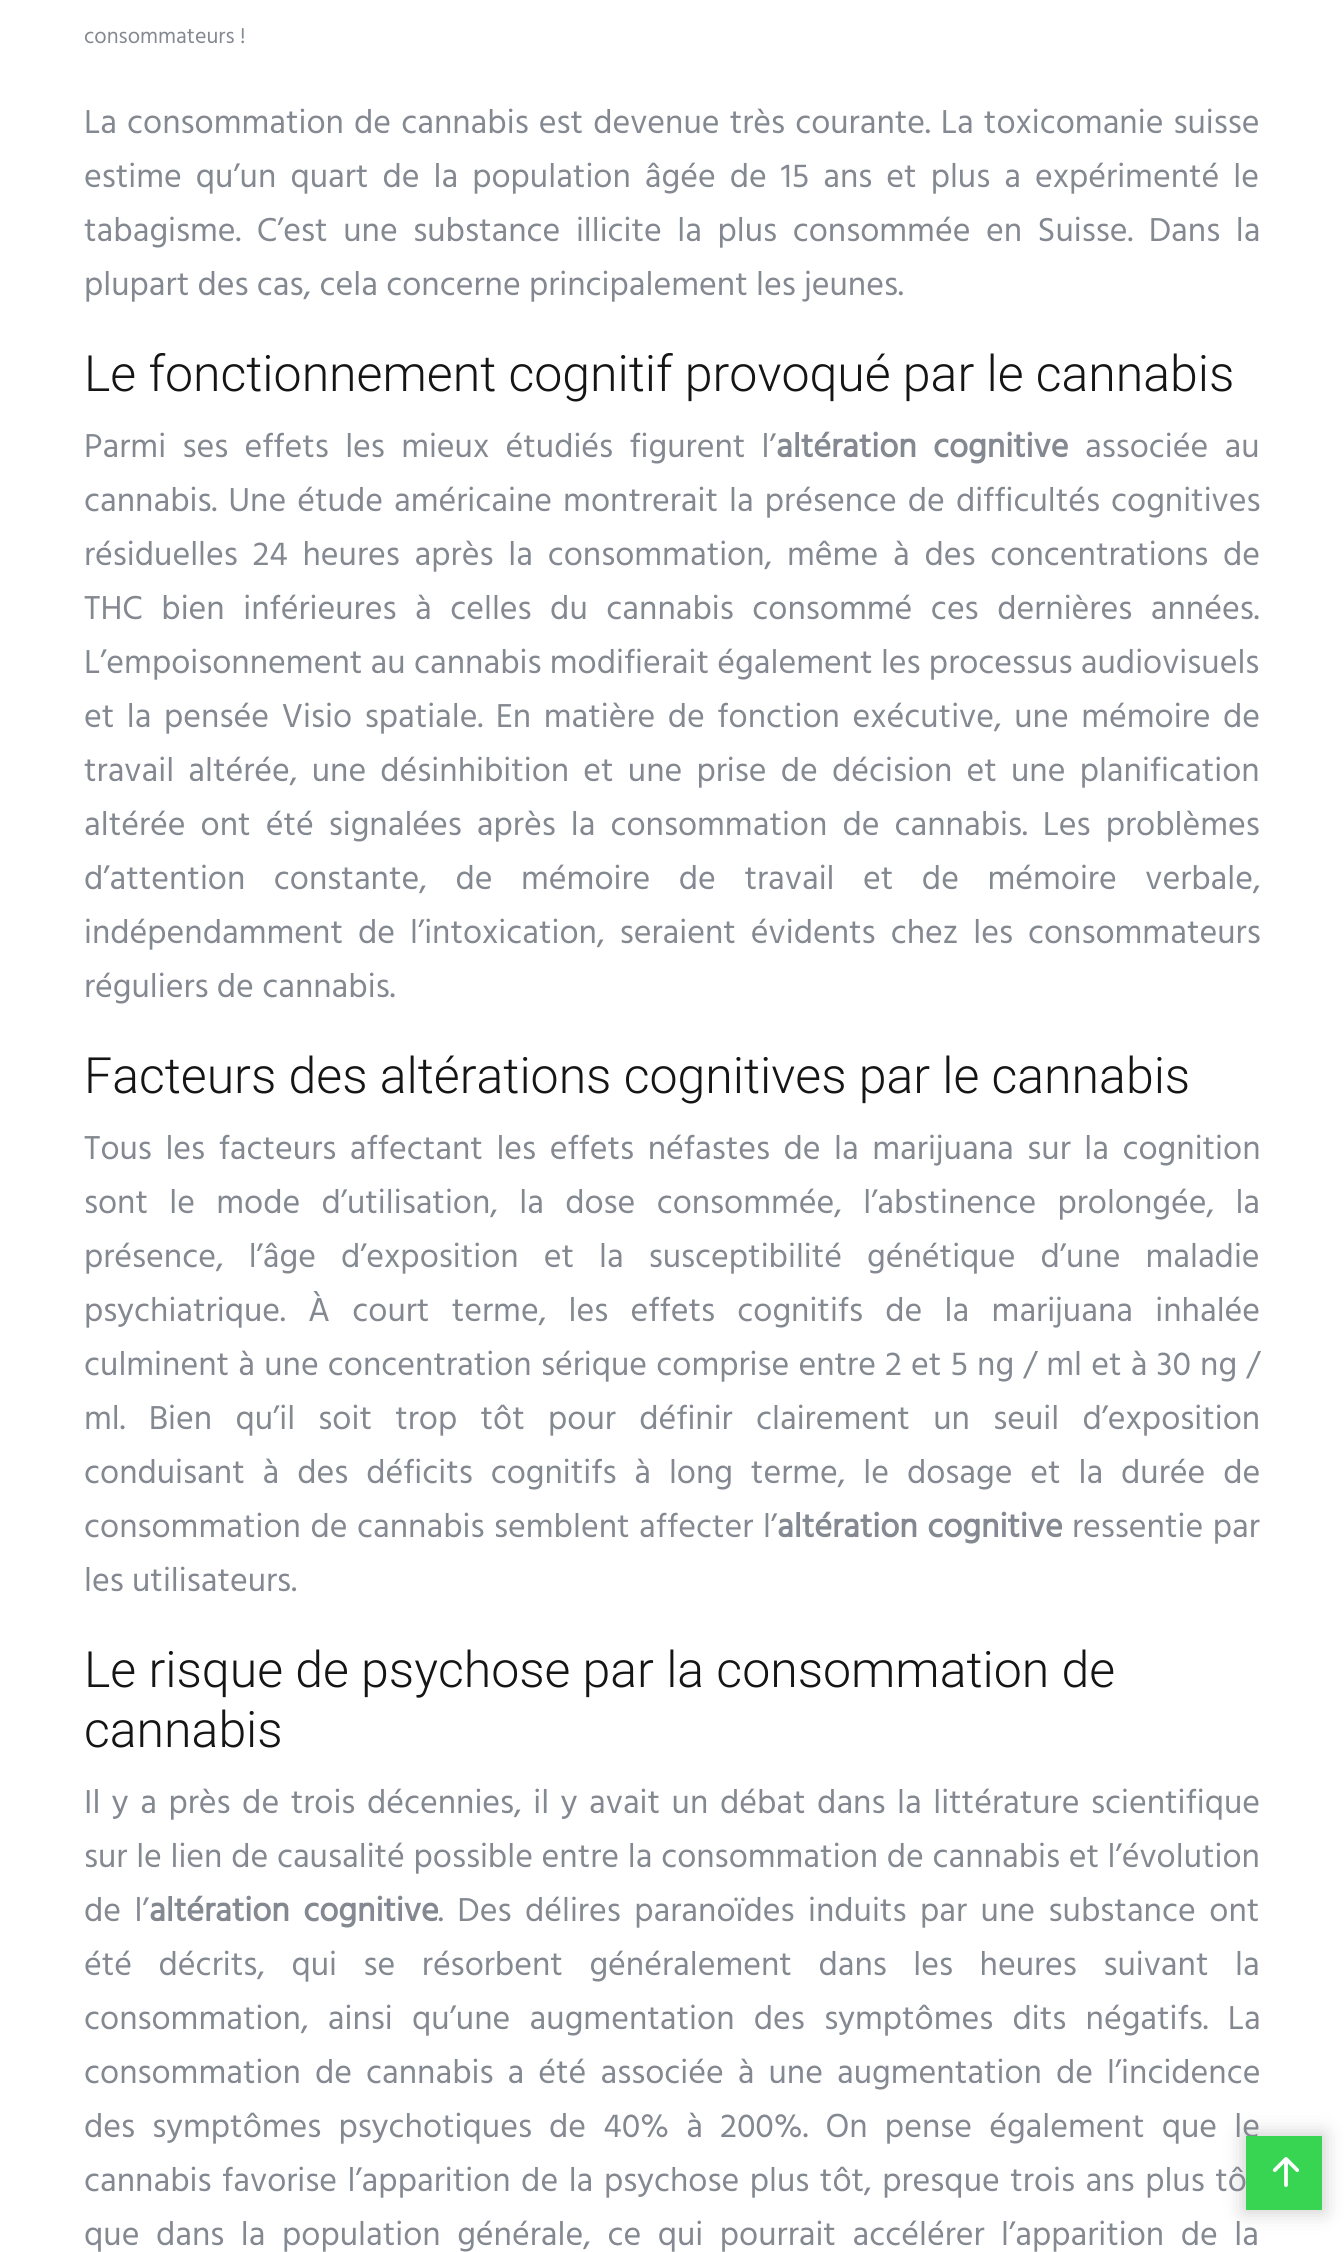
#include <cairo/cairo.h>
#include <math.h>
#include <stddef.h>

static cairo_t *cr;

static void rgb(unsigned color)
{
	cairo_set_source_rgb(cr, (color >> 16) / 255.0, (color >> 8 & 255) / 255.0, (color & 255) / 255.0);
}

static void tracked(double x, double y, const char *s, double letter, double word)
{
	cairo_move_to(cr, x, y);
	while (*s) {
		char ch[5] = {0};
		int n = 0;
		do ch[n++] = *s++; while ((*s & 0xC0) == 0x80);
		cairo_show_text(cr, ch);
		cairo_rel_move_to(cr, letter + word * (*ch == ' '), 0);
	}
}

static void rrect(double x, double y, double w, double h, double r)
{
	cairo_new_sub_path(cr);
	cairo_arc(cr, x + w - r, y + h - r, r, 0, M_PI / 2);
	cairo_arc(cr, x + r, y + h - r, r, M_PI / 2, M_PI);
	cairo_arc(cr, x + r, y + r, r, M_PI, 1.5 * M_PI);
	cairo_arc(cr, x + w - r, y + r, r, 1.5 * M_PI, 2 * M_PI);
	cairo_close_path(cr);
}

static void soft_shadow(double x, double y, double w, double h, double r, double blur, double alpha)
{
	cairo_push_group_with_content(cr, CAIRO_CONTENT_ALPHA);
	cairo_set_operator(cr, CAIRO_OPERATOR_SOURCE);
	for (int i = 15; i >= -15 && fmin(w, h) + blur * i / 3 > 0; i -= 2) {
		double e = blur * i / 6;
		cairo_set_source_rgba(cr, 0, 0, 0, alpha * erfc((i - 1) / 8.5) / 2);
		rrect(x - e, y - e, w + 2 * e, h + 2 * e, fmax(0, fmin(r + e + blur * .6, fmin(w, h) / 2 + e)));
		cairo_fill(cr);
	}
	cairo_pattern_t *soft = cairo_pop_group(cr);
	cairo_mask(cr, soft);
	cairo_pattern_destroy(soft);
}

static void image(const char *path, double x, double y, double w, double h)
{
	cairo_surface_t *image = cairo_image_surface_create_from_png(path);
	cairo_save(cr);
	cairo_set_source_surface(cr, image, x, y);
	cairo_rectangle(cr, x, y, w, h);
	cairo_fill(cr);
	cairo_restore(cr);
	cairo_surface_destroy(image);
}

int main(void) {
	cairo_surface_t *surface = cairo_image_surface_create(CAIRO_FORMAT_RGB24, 1344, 2252);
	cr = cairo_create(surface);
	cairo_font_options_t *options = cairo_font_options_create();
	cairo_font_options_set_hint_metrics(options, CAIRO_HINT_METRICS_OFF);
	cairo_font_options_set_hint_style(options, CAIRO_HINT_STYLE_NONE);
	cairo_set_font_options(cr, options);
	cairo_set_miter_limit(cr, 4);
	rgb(0xffffff);
	cairo_paint(cr);
	rgb(0x000000);
	soft_shadow(1244, 2134, 80, 78, 0, 10, 0.2);
	cairo_select_font_face(cr, "Hind", CAIRO_FONT_SLANT_NORMAL, CAIRO_FONT_WEIGHT_NORMAL);
	cairo_set_font_size(cr, 22);
	rgb(0x848991);
	cairo_move_to(cr, 84, 43);
	cairo_show_text(cr, "consommateurs !");
	cairo_set_font_size(cr, 34);
	tracked(84, 133, "La consommation de cannabis est devenue très courante. La toxicomanie suisse", 0, 1.8);
	tracked(84, 187, "estime qu’un quart de la population âgée de 15 ans et plus a expérimenté le", 0, 5.75);
	tracked(84, 241, "tabagisme. C’est une substance illicite la plus consommée en Suisse. Dans la", 0, 7.25);
	cairo_move_to(cr, 84, 295);
	cairo_show_text(cr, "plupart des cas, cela concerne principalement les jeunes.");
	cairo_select_font_face(cr, "Roboto Light", CAIRO_FONT_SLANT_NORMAL, CAIRO_FONT_WEIGHT_NORMAL);
	cairo_set_font_size(cr, 50);
	rgb(0x151515);
	cairo_move_to(cr, 84, 391);
	cairo_show_text(cr, "Le fonctionnement cognitif provoqué par le cannabis");
	cairo_select_font_face(cr, "Hind", CAIRO_FONT_SLANT_NORMAL, CAIRO_FONT_WEIGHT_NORMAL);
	cairo_set_font_size(cr, 34);
	rgb(0x848991);
	tracked(84, 457, "Parmi ses effets les mieux étudiés figurent l’", 0, 8);
	cairo_select_font_face(cr, "Hind", CAIRO_FONT_SLANT_NORMAL, CAIRO_FONT_WEIGHT_BOLD);
	tracked(776, 457, "altération cognitive", 0, 8);
	cairo_select_font_face(cr, "Hind", CAIRO_FONT_SLANT_NORMAL, CAIRO_FONT_WEIGHT_NORMAL);
	tracked(1085, 457, "associée au", 0, 8);
	tracked(84, 511, "cannabis. Une étude américaine montrerait la présence de difficultés cognitives", 0, 2.75);
	tracked(84, 565, "résiduelles 24 heures après la consommation, même à des concentrations de", 0, 6.5);
	tracked(84, 619, "THC bien inférieures à celles du cannabis consommé ces dernières années.", 0, 10.25);
	cairo_move_to(cr, 84, 673);
	cairo_show_text(cr, "L’empoisonnement au cannabis modifierait également les processus audiovisuels");
	tracked(84, 727, "et la pensée Visio spatiale. En matière de fonction exécutive, une mémoire de", 0, 4.25);
	tracked(84, 781, "travail altérée, une désinhibition et une prise de décision et une planification", 0, 5.9);
	tracked(84, 835, "altérée ont été signalées après la consommation de cannabis. Les problèmes", 0, 6.75);
	tracked(84, 889, "d’attention constante, de mémoire de travail et de mémoire verbale,", 0, 20.25);
	tracked(84, 943, "indépendamment de l’intoxication, seraient évidents chez les consommateurs", 0, 6.75);
	cairo_move_to(cr, 84, 997);
	cairo_show_text(cr, "réguliers de cannabis.");
	cairo_select_font_face(cr, "Roboto Light", CAIRO_FONT_SLANT_NORMAL, CAIRO_FONT_WEIGHT_NORMAL);
	cairo_set_font_size(cr, 50);
	rgb(0x151515);
	cairo_move_to(cr, 84, 1093);
	cairo_show_text(cr, "Facteurs des altérations cognitives par le cannabis");
	cairo_select_font_face(cr, "Hind", CAIRO_FONT_SLANT_NORMAL, CAIRO_FONT_WEIGHT_NORMAL);
	cairo_set_font_size(cr, 34);
	rgb(0x848991);
	tracked(84, 1159, "Tous les facteurs affectant les effets néfastes de la marijuana sur la cognition", 0, 5.25);
	tracked(84, 1213, "sont le mode d’utilisation, la dose consommée, l’abstinence prolongée, la", 0, 13);
	tracked(84, 1267, "présence, l’âge d’exposition et la susceptibilité génétique d’une maladie", 0, 16.75);
	tracked(84, 1321, "psychiatrique. À court terme, les effets cognitifs de la marijuana inhalée", 0, 14);
	tracked(84, 1375, "culminent à une concentration sérique comprise entre 2 et 5 ng / ml et à 30 ng /", 0, 0.9);
	tracked(84, 1429, "ml. Bien qu’il soit trop tôt pour définir clairement un seuil d’exposition", 0, 15);
	tracked(84, 1483, "conduisant à des déficits cognitifs à long terme, le dosage et la durée de", 0, 9.6);
	tracked(84, 1537, "consommation de cannabis semblent affecter l’", 0, 1.25);
	cairo_select_font_face(cr, "Hind", CAIRO_FONT_SLANT_NORMAL, CAIRO_FONT_WEIGHT_BOLD);
	tracked(777, 1537, "altération cognitive", 0, 1.25);
	cairo_select_font_face(cr, "Hind", CAIRO_FONT_SLANT_NORMAL, CAIRO_FONT_WEIGHT_NORMAL);
	tracked(1072, 1537, "ressentie par", 0, 1.25);
	cairo_move_to(cr, 84, 1591);
	cairo_show_text(cr, "les utilisateurs.");
	cairo_select_font_face(cr, "Roboto Light", CAIRO_FONT_SLANT_NORMAL, CAIRO_FONT_WEIGHT_NORMAL);
	cairo_set_font_size(cr, 50);
	rgb(0x151515);
	cairo_move_to(cr, 84, 1687);
	cairo_show_text(cr, "Le risque de psychose par la consommation de");
	cairo_move_to(cr, 84, 1747);
	cairo_show_text(cr, "cannabis");
	cairo_select_font_face(cr, "Hind", CAIRO_FONT_SLANT_NORMAL, CAIRO_FONT_WEIGHT_NORMAL);
	cairo_set_font_size(cr, 34);
	rgb(0x848991);
	tracked(84, 1813, "Il y a près de trois décennies, il y avait un débat dans la littérature scientifique", 0, 3.25);
	tracked(84, 1867, "sur le lien de causalité possible entre la consommation de cannabis et l’évolution", 0, 0.4);
	tracked(84, 1921, "de l’", 0, 5.25);
	cairo_select_font_face(cr, "Hind", CAIRO_FONT_SLANT_NORMAL, CAIRO_FONT_WEIGHT_BOLD);
	tracked(149, 1921, "altération cognitive", 0, 5.25);
	cairo_select_font_face(cr, "Hind", CAIRO_FONT_SLANT_NORMAL, CAIRO_FONT_WEIGHT_NORMAL);
	tracked(438, 1921, ". Des délires paranoïdes induits par une substance ont", 0, 5.25);
	tracked(84, 1975, "été décrits, qui se résorbent généralement dans les heures suivant la", 0, 18.25);
	tracked(84, 2029, "consommation, ainsi qu’une augmentation des symptômes dits négatifs. La", 0, 11);
	tracked(84, 2083, "consommation de cannabis a été associée à une augmentation de l’incidence", 0, 5.75);
	tracked(84, 2137, "des symptômes psychotiques de 40% à 200%. On pense également que le", 0, 8.9);
	tracked(84, 2191, "cannabis favorise l’apparition de la psychose plus tôt, presque trois ans plus tô", 0, 2.25);
	tracked(84, 2245, "que dans la population générale, ce qui pourrait accélérer l’apparition de la", 0, 8.25);
	rgb(0x38d552);
	cairo_rectangle(cr, 1246, 2136, 76, 74);
	cairo_fill(cr);
	image("img/1.png", 1272, 2157, 28, 30);
	cairo_surface_write_to_png(surface, "page.png");
	cairo_font_options_destroy(options);
	cairo_destroy(cr);
	cairo_surface_destroy(surface);
	return 0;
}
